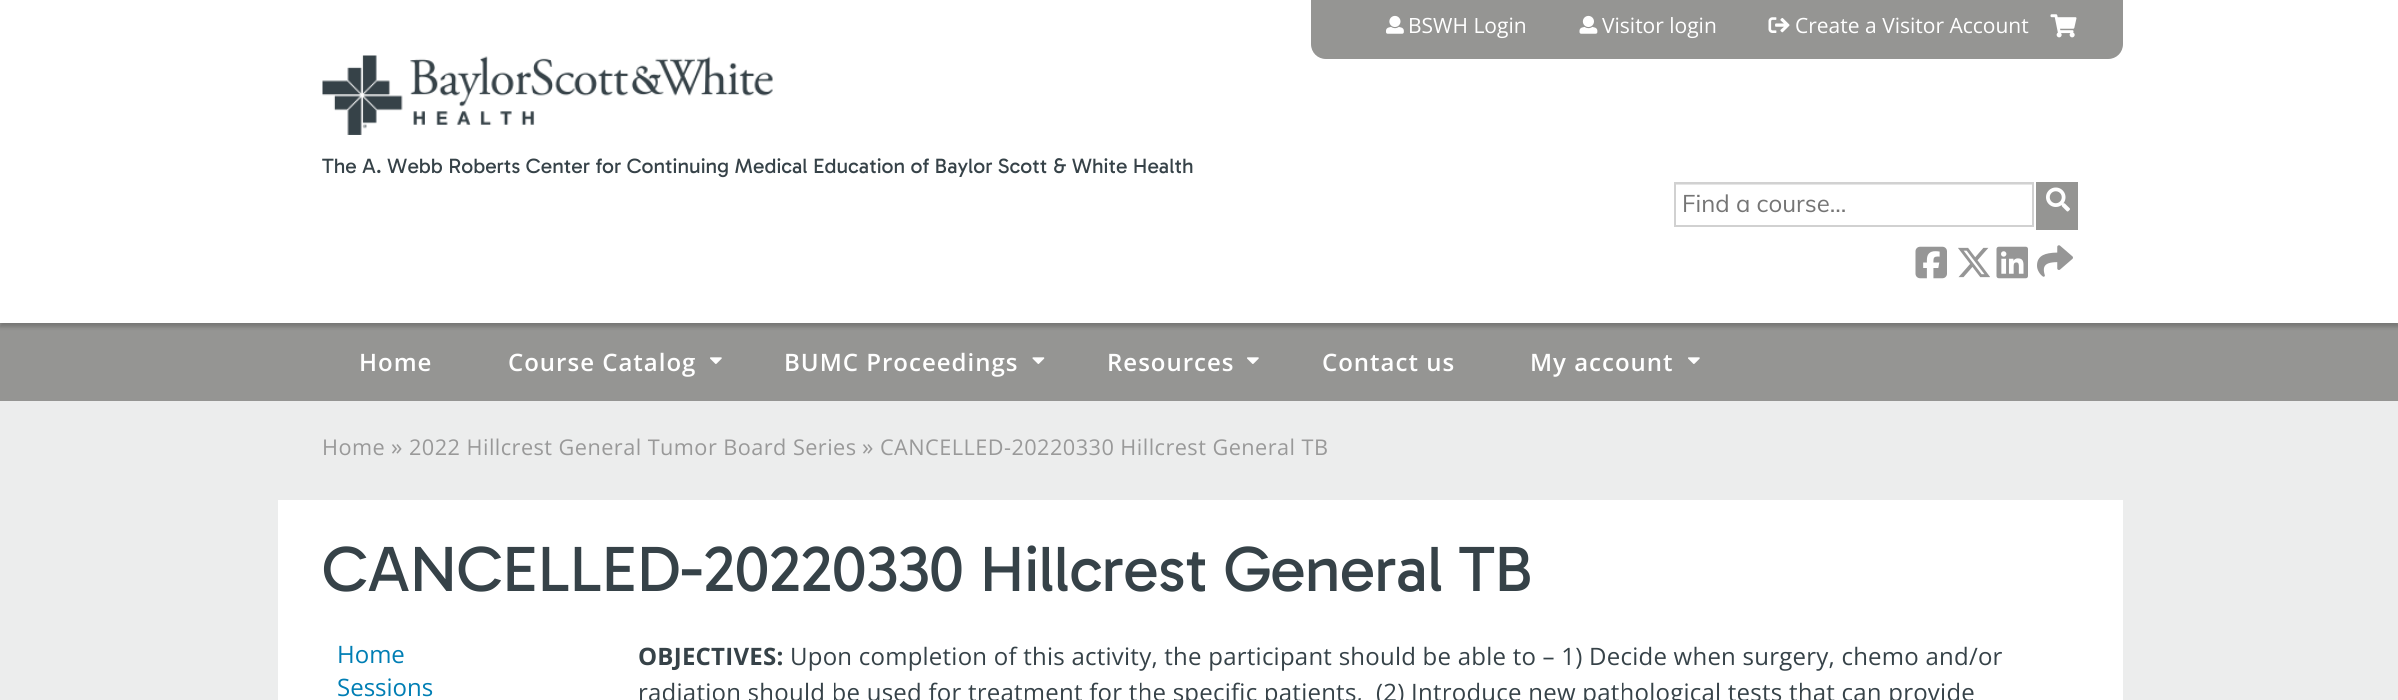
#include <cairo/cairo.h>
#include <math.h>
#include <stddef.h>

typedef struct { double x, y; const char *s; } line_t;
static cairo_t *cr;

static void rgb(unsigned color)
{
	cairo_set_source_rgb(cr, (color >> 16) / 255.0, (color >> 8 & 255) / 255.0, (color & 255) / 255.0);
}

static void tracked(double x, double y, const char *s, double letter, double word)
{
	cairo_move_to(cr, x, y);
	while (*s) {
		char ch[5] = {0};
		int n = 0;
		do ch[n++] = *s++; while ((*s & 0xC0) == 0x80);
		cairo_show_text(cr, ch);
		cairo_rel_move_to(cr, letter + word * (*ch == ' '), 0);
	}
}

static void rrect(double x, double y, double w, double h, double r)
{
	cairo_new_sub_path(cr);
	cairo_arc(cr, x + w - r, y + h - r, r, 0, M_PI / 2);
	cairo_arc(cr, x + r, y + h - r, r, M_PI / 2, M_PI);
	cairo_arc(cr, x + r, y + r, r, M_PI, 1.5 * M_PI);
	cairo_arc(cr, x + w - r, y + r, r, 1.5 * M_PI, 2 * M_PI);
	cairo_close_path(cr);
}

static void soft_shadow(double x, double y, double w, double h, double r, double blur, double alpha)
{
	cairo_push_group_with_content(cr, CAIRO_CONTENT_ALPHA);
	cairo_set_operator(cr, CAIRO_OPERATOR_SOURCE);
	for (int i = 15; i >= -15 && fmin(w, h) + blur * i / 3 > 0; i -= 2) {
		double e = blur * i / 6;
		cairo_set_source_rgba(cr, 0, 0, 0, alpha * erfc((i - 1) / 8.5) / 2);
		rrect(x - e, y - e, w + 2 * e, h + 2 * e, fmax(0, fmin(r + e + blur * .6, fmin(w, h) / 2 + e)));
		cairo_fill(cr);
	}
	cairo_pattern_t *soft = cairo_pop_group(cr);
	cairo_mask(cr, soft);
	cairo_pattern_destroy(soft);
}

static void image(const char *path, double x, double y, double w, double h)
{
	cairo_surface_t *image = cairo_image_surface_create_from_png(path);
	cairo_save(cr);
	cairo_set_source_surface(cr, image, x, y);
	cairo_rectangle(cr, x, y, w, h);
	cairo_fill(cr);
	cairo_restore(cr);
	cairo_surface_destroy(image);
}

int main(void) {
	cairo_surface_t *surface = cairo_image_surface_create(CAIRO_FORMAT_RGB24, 2398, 700);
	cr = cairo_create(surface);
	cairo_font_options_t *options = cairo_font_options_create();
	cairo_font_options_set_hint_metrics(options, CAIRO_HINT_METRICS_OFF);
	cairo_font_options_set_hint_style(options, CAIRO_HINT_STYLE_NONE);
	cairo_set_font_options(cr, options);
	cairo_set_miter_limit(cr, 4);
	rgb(0xeceded);
	cairo_paint(cr);
	rgb(0x959593);
	cairo_rectangle(cr, 0, 323, 2398, 78);
	cairo_fill(cr);
	rgb(0x000000);
	soft_shadow(0, 5, 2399, 322, 0, 2, 0.2);
	rgb(0xffffff);
	cairo_rectangle(cr, 0, 0, 2398, 323);
	cairo_fill(cr);
	image("img/1.png", 322, 55, 451, 80);
	rgb(0x959593);
	cairo_new_path(cr);
	cairo_move_to(cr, 1311, 0);
	cairo_line_to(cr, 2123, 0);
	cairo_line_to(cr, 2123, 44);
	cairo_curve_to(cr, 2123, 52.5, 2116.5, 59, 2108, 59);
	cairo_line_to(cr, 1326, 59);
	cairo_curve_to(cr, 1317.5, 59, 1311, 52.5, 1311, 44);
	cairo_close_path(cr);
	cairo_fill(cr);
	image("img/2.png", 1386, 15, 18, 19);
	image("img/3.png", 1579, 15, 19, 19);
	image("img/4.png", 1768, 17, 22, 16);
	image("img/5.png", 2050, 14, 27, 24);
	cairo_rectangle(cr, 2036, 182, 42, 48);
	cairo_fill(cr);
	rgb(0xe6e6e6);
	cairo_rectangle(cr, 1676, 184, 357, 1);
	cairo_fill(cr);
	cairo_rectangle(cr, 1675, 183, 358, 43);
	rgb(0xd1d1d1);
	cairo_stroke(cr);
	image("img/6.png", 2046, 187, 24, 25);
	image("img/7.png", 1915, 246, 32, 33);
	image("img/8.png", 1958, 247, 32, 31);
	image("img/9.png", 1996, 246, 32, 33);
	image("img/10.png", 2037, 245, 36, 32);
	image("img/11.png", 710, 357, 12, 7);
	image("img/12.png", 1032, 357, 13, 7);
	image("img/11.png", 1247, 357, 12, 7);
	image("img/11.png", 1688, 357, 12, 7);
	rgb(0xffffff);
	cairo_rectangle(cr, 278, 500, 1845, 200);
	cairo_fill(cr);
	cairo_select_font_face(cr, "Open Sans", CAIRO_FONT_SLANT_NORMAL, CAIRO_FONT_WEIGHT_NORMAL);
	cairo_set_font_size(cr, 21);
	{
		static const line_t items[] = {
			{1408, 33, "BSWH Login"},
			{1602, 33, "Visitor login"},
			{1795, 33, "Create a Visitor Account"},
		};
		for (size_t i = 0; i < sizeof items / sizeof *items; i++) {
			cairo_move_to(cr, items[i].x, items[i].y);
			cairo_show_text(cr, items[i].s);
		}
	}
	cairo_select_font_face(cr, "Muli", CAIRO_FONT_SLANT_NORMAL, CAIRO_FONT_WEIGHT_NORMAL);
	cairo_set_font_size(cr, 24);
	rgb(0x757575);
	cairo_move_to(cr, 1682, 212);
	cairo_show_text(cr, "Find a course...");
	cairo_select_font_face(cr, "Gabarito", CAIRO_FONT_SLANT_NORMAL, CAIRO_FONT_WEIGHT_NORMAL);
	cairo_set_font_size(cr, 21);
	rgb(0x364248);
	cairo_move_to(cr, 322, 173);
	cairo_show_text(cr, "The A. Webb Roberts Center for Continuing Medical Education of Baylor Scott & White Health");
	cairo_select_font_face(cr, "Open Sans SemiBold", CAIRO_FONT_SLANT_NORMAL, CAIRO_FONT_WEIGHT_NORMAL);
	cairo_set_font_size(cr, 24);
	rgb(0xffffff);
	{
		static const line_t items[] = {
			{359, 371, "Home"},
			{508, 371, "Course Catalog"},
			{784, 371, "BUMC Proceedings"},
			{1107, 371, "Resources"},
			{1322, 371, "Contact us"},
			{1530, 371, "My account"},
		};
		for (size_t i = 0; i < sizeof items / sizeof *items; i++) {
			tracked(items[i].x, items[i].y, items[i].s, 1, 0);
		}
	}
	cairo_select_font_face(cr, "Open Sans", CAIRO_FONT_SLANT_NORMAL, CAIRO_FONT_WEIGHT_NORMAL);
	cairo_set_font_size(cr, 21.7);
	rgb(0x999999);
	tracked(322, 455, "Home", 0.45, 0);
	cairo_set_font_size(cr, 23);
	cairo_move_to(cr, 391, 455);
	cairo_show_text(cr, "»");
	cairo_set_font_size(cr, 21.7);
	tracked(409, 455, "2022 Hillcrest General Tumor Board Series", 0.45, 0);
	cairo_set_font_size(cr, 23);
	cairo_move_to(cr, 862, 455);
	cairo_show_text(cr, "»");
	cairo_set_font_size(cr, 21.7);
	tracked(880, 455, "CANCELLED-20220330 Hillcrest General TB", 0.45, 0);
	cairo_select_font_face(cr, "Gabarito", CAIRO_FONT_SLANT_NORMAL, CAIRO_FONT_WEIGHT_NORMAL);
	cairo_set_font_size(cr, 64.75);
	rgb(0x364248);
	tracked(322, 591, "CANCELLED-20220330 Hillcrest General TB", -0.65, 0);
	cairo_select_font_face(cr, "Open Sans", CAIRO_FONT_SLANT_NORMAL, CAIRO_FONT_WEIGHT_NORMAL);
	cairo_set_font_size(cr, 24);
	rgb(0x007eb4);
	cairo_move_to(cr, 337, 663);
	cairo_show_text(cr, "Home");
	cairo_move_to(cr, 337, 696);
	cairo_show_text(cr, "Sessions");
	cairo_select_font_face(cr, "Open Sans", CAIRO_FONT_SLANT_NORMAL, CAIRO_FONT_WEIGHT_BOLD);
	rgb(0x364248);
	tracked(638, 665, "OBJECTIVES:", 0.24, 0);
	cairo_select_font_face(cr, "Open Sans", CAIRO_FONT_SLANT_NORMAL, CAIRO_FONT_WEIGHT_NORMAL);
	tracked(790, 665, "Upon completion of this activity, the participant should be able to – 1) Decide when surgery, chemo and/or", 0.24, 0);
	tracked(638, 701, "radiation should be used for treatment for the specific patients,  (2) Introduce new pathological tests that can provide", 0.24, 0);
	cairo_surface_write_to_png(surface, "page.png");
	cairo_font_options_destroy(options);
	cairo_destroy(cr);
	cairo_surface_destroy(surface);
	return 0;
}
